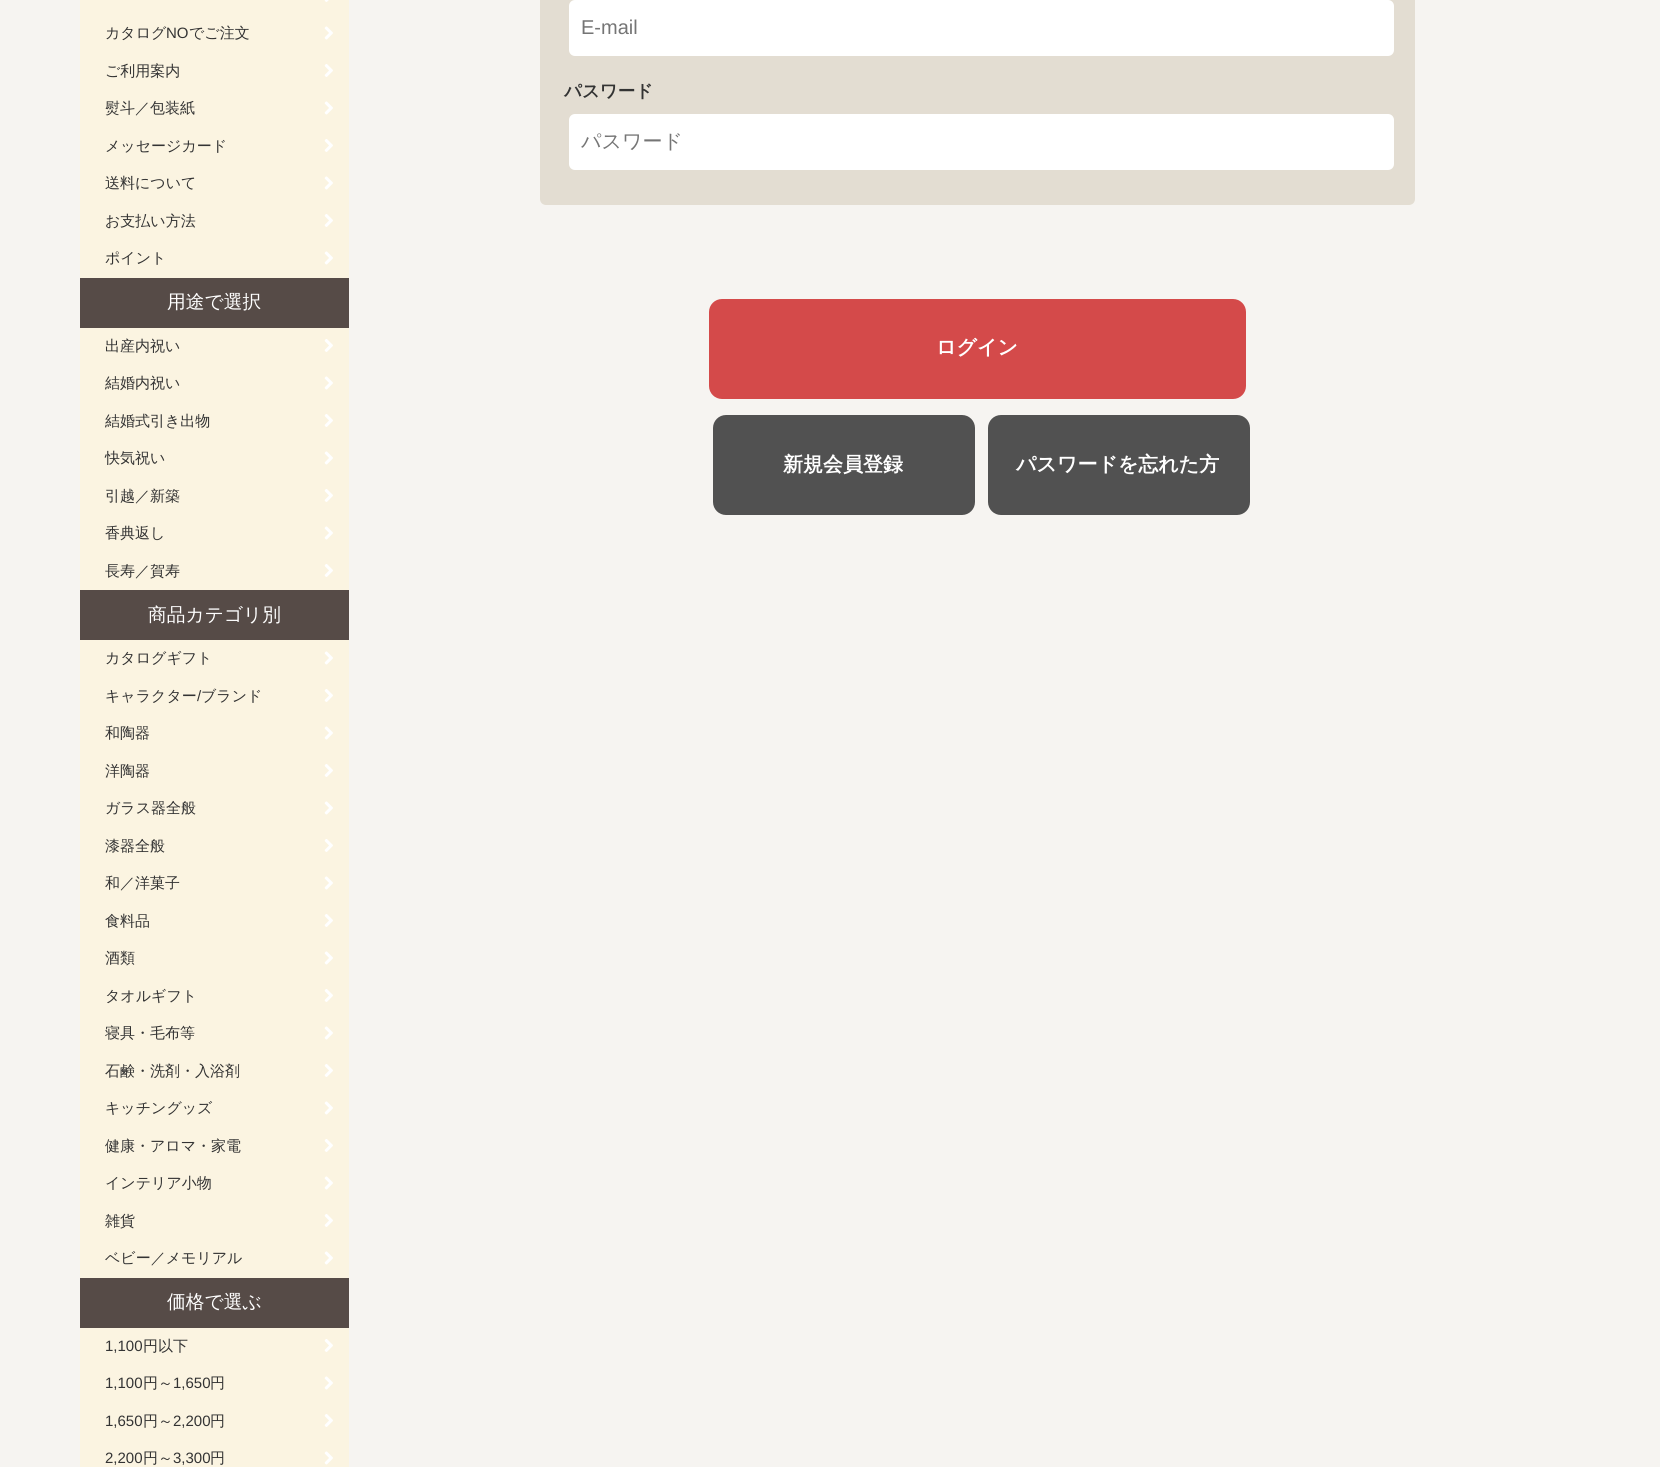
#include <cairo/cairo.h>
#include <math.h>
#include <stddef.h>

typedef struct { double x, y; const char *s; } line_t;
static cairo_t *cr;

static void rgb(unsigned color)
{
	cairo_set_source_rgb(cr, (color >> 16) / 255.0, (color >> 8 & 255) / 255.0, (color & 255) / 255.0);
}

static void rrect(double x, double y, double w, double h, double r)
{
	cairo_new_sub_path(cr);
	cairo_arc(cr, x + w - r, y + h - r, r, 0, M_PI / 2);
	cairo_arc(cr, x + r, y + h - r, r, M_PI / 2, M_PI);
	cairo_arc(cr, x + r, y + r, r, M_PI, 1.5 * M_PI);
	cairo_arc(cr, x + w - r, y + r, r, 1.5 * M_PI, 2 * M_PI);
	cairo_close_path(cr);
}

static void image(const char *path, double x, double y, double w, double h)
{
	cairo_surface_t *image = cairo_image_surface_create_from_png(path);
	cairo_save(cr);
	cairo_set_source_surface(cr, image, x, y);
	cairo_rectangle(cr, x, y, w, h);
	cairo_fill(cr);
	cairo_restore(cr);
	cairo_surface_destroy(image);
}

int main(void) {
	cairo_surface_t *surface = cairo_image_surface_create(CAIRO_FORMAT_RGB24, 1660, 1467);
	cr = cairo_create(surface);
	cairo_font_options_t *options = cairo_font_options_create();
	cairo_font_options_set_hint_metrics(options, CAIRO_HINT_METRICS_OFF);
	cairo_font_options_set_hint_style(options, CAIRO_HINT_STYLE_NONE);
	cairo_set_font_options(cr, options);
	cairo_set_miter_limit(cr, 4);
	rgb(0xf6f4f1);
	cairo_paint(cr);
	rgb(0xfbf4e1);
	cairo_rectangle(cr, 80, 0, 269, 278);
	cairo_fill(cr);
	image("img/1.png", 324, 0, 5, 2);
	image("img/2.png", 324, 26, 9, 14);
	image("img/3.png", 324, 64, 9, 13);
	image("img/2.png", 324, 101, 9, 14);
	image("img/3.png", 324, 139, 9, 13);
	image("img/2.png", 324, 176, 9, 14);
	image("img/3.png", 324, 214, 9, 13);
	image("img/2.png", 324, 251, 9, 14);
	rgb(0x564b47);
	cairo_rectangle(cr, 80, 278, 269, 50);
	cairo_fill(cr);
	rgb(0xfbf4e1);
	cairo_rectangle(cr, 80, 328, 269, 262);
	cairo_fill(cr);
	image("img/3.png", 324, 339, 9, 13);
	image("img/2.png", 324, 376, 9, 14);
	image("img/3.png", 324, 414, 9, 13);
	image("img/2.png", 324, 451, 9, 14);
	image("img/3.png", 324, 489, 9, 13);
	image("img/2.png", 324, 526, 9, 14);
	image("img/3.png", 324, 564, 9, 13);
	rgb(0x564b47);
	cairo_rectangle(cr, 80, 590, 269, 50);
	cairo_fill(cr);
	rgb(0xfbf4e1);
	cairo_rectangle(cr, 80, 640, 269, 638);
	cairo_fill(cr);
	image("img/2.png", 324, 651, 9, 14);
	image("img/3.png", 324, 689, 9, 13);
	image("img/2.png", 324, 726, 9, 14);
	image("img/3.png", 324, 764, 9, 13);
	image("img/2.png", 324, 801, 9, 14);
	image("img/3.png", 324, 839, 9, 13);
	image("img/2.png", 324, 876, 9, 14);
	image("img/3.png", 324, 914, 9, 13);
	image("img/2.png", 324, 951, 9, 14);
	image("img/3.png", 324, 989, 9, 13);
	image("img/2.png", 324, 1026, 9, 14);
	image("img/3.png", 324, 1064, 9, 13);
	image("img/2.png", 324, 1101, 9, 14);
	image("img/3.png", 324, 1139, 9, 13);
	image("img/2.png", 324, 1176, 9, 14);
	image("img/3.png", 324, 1214, 9, 13);
	image("img/2.png", 324, 1251, 9, 14);
	rgb(0x564b47);
	cairo_rectangle(cr, 80, 1278, 269, 50);
	cairo_fill(cr);
	rgb(0xfbf4e1);
	cairo_rectangle(cr, 80, 1328, 269, 139);
	cairo_fill(cr);
	image("img/3.png", 324, 1339, 9, 13);
	image("img/2.png", 324, 1376, 9, 14);
	image("img/3.png", 324, 1414, 9, 13);
	image("img/2.png", 324, 1451, 9, 14);
	rgb(0xe3ddd2);
	rrect(540, -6, 875, 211, 6);
	cairo_fill(cr);
	rgb(0xffffff);
	rrect(569, 0, 825, 56, 6);
	cairo_fill(cr);
	rrect(569, 114, 825, 56, 6);
	cairo_fill(cr);
	rgb(0xd44a4a);
	rrect(709, 299, 537, 100, 13);
	cairo_fill(cr);
	rgb(0x515151);
	rrect(713, 415, 262, 100, 13);
	cairo_fill(cr);
	rrect(988, 415, 262, 100, 13);
	cairo_fill(cr);
	cairo_select_font_face(cr, "WenQuanYi Zen Hei Medium", CAIRO_FONT_SLANT_NORMAL, CAIRO_FONT_WEIGHT_NORMAL);
	cairo_set_font_size(cr, 15);
	rgb(0x333333);
	cairo_move_to(cr, 105, 38);
	cairo_show_text(cr, "カタログ");
	cairo_select_font_face(cr, "Liberation Sans", CAIRO_FONT_SLANT_NORMAL, CAIRO_FONT_WEIGHT_NORMAL);
	cairo_move_to(cr, 166, 38);
	cairo_show_text(cr, "NO");
	cairo_select_font_face(cr, "WenQuanYi Zen Hei Medium", CAIRO_FONT_SLANT_NORMAL, CAIRO_FONT_WEIGHT_NORMAL);
	{
		static const line_t items[] = {
			{189, 38, "でご注文"},
			{105, 76, "ご利用案内"},
			{105, 113, "熨斗／包装紙"},
			{105, 151, "メッセージカード"},
			{105, 188, "送料について"},
			{105, 226, "お支払い方法"},
			{105, 263, "ポイント"},
		};
		for (size_t i = 0; i < sizeof items / sizeof *items; i++) {
			cairo_move_to(cr, items[i].x, items[i].y);
			cairo_show_text(cr, items[i].s);
		}
	}
	cairo_set_font_size(cr, 18.75);
	rgb(0xffffff);
	cairo_move_to(cr, 167, 308);
	cairo_show_text(cr, "用途で選択");
	cairo_set_font_size(cr, 15);
	rgb(0x333333);
	{
		static const line_t items[] = {
			{105, 351, "出産内祝い"},
			{105, 388, "結婚内祝い"},
			{105, 426, "結婚式引き出物"},
			{105, 463, "快気祝い"},
			{105, 501, "引越／新築"},
			{105, 538, "香典返し"},
			{105, 576, "長寿／賀寿"},
		};
		for (size_t i = 0; i < sizeof items / sizeof *items; i++) {
			cairo_move_to(cr, items[i].x, items[i].y);
			cairo_show_text(cr, items[i].s);
		}
	}
	cairo_set_font_size(cr, 18.75);
	rgb(0xffffff);
	cairo_move_to(cr, 148, 621);
	cairo_show_text(cr, "商品カテゴリ別");
	cairo_set_font_size(cr, 15);
	rgb(0x333333);
	cairo_move_to(cr, 105, 663);
	cairo_show_text(cr, "カタログギフト");
	cairo_move_to(cr, 105, 701);
	cairo_show_text(cr, "キャラクター");
	cairo_select_font_face(cr, "Liberation Sans", CAIRO_FONT_SLANT_NORMAL, CAIRO_FONT_WEIGHT_NORMAL);
	cairo_move_to(cr, 197, 701);
	cairo_show_text(cr, "/");
	cairo_select_font_face(cr, "WenQuanYi Zen Hei Medium", CAIRO_FONT_SLANT_NORMAL, CAIRO_FONT_WEIGHT_NORMAL);
	{
		static const line_t items[] = {
			{201, 701, "ブランド"},
			{105, 738, "和陶器"},
			{105, 776, "洋陶器"},
			{105, 813, "ガラス器全般"},
			{105, 851, "漆器全般"},
			{105, 888, "和／洋菓子"},
			{105, 926, "食料品"},
			{105, 963, "酒類"},
			{105, 1001, "タオルギフト"},
			{105, 1038, "寝具・毛布等"},
			{105, 1076, "石鹸・洗剤・入浴剤"},
			{105, 1113, "キッチングッズ"},
			{105, 1151, "健康・アロマ・家電"},
			{105, 1188, "インテリア小物"},
			{105, 1226, "雑貨"},
			{105, 1263, "ベビー／メモリアル"},
		};
		for (size_t i = 0; i < sizeof items / sizeof *items; i++) {
			cairo_move_to(cr, items[i].x, items[i].y);
			cairo_show_text(cr, items[i].s);
		}
	}
	cairo_set_font_size(cr, 18.75);
	rgb(0xffffff);
	cairo_move_to(cr, 167, 1308);
	cairo_show_text(cr, "価格で選ぶ");
	cairo_select_font_face(cr, "Liberation Sans", CAIRO_FONT_SLANT_NORMAL, CAIRO_FONT_WEIGHT_NORMAL);
	cairo_set_font_size(cr, 15);
	rgb(0x333333);
	cairo_move_to(cr, 105, 1351);
	cairo_show_text(cr, "1,100");
	cairo_select_font_face(cr, "WenQuanYi Zen Hei Medium", CAIRO_FONT_SLANT_NORMAL, CAIRO_FONT_WEIGHT_NORMAL);
	cairo_move_to(cr, 143, 1351);
	cairo_show_text(cr, "円以下");
	cairo_select_font_face(cr, "Liberation Sans", CAIRO_FONT_SLANT_NORMAL, CAIRO_FONT_WEIGHT_NORMAL);
	cairo_move_to(cr, 105, 1388);
	cairo_show_text(cr, "1,100");
	cairo_select_font_face(cr, "WenQuanYi Zen Hei Medium", CAIRO_FONT_SLANT_NORMAL, CAIRO_FONT_WEIGHT_NORMAL);
	cairo_move_to(cr, 143, 1388);
	cairo_show_text(cr, "円～");
	cairo_select_font_face(cr, "Liberation Sans", CAIRO_FONT_SLANT_NORMAL, CAIRO_FONT_WEIGHT_NORMAL);
	cairo_move_to(cr, 173, 1388);
	cairo_show_text(cr, "1,650");
	cairo_select_font_face(cr, "WenQuanYi Zen Hei Medium", CAIRO_FONT_SLANT_NORMAL, CAIRO_FONT_WEIGHT_NORMAL);
	cairo_move_to(cr, 210, 1388);
	cairo_show_text(cr, "円");
	cairo_select_font_face(cr, "Liberation Sans", CAIRO_FONT_SLANT_NORMAL, CAIRO_FONT_WEIGHT_NORMAL);
	cairo_move_to(cr, 105, 1426);
	cairo_show_text(cr, "1,650");
	cairo_select_font_face(cr, "WenQuanYi Zen Hei Medium", CAIRO_FONT_SLANT_NORMAL, CAIRO_FONT_WEIGHT_NORMAL);
	cairo_move_to(cr, 143, 1426);
	cairo_show_text(cr, "円～");
	cairo_select_font_face(cr, "Liberation Sans", CAIRO_FONT_SLANT_NORMAL, CAIRO_FONT_WEIGHT_NORMAL);
	cairo_move_to(cr, 173, 1426);
	cairo_show_text(cr, "2,200");
	cairo_select_font_face(cr, "WenQuanYi Zen Hei Medium", CAIRO_FONT_SLANT_NORMAL, CAIRO_FONT_WEIGHT_NORMAL);
	cairo_move_to(cr, 210, 1426);
	cairo_show_text(cr, "円");
	cairo_select_font_face(cr, "Liberation Sans", CAIRO_FONT_SLANT_NORMAL, CAIRO_FONT_WEIGHT_NORMAL);
	cairo_move_to(cr, 105, 1463);
	cairo_show_text(cr, "2,200");
	cairo_select_font_face(cr, "WenQuanYi Zen Hei Medium", CAIRO_FONT_SLANT_NORMAL, CAIRO_FONT_WEIGHT_NORMAL);
	cairo_move_to(cr, 143, 1463);
	cairo_show_text(cr, "円～");
	cairo_select_font_face(cr, "Liberation Sans", CAIRO_FONT_SLANT_NORMAL, CAIRO_FONT_WEIGHT_NORMAL);
	cairo_move_to(cr, 173, 1463);
	cairo_show_text(cr, "3,300");
	cairo_select_font_face(cr, "WenQuanYi Zen Hei Medium", CAIRO_FONT_SLANT_NORMAL, CAIRO_FONT_WEIGHT_NORMAL);
	cairo_move_to(cr, 210, 1463);
	cairo_show_text(cr, "円");
	cairo_select_font_face(cr, "Liberation Sans", CAIRO_FONT_SLANT_NORMAL, CAIRO_FONT_WEIGHT_NORMAL);
	cairo_set_font_size(cr, 20);
	rgb(0x757575);
	cairo_move_to(cr, 581, 34);
	cairo_show_text(cr, "E-mail");
	cairo_select_font_face(cr, "WenQuanYi Zen Hei", CAIRO_FONT_SLANT_NORMAL, CAIRO_FONT_WEIGHT_BOLD);
	cairo_set_font_size(cr, 17.5);
	rgb(0x333333);
	cairo_move_to(cr, 564, 97);
	cairo_show_text(cr, "パスワード");
	cairo_select_font_face(cr, "WenQuanYi Zen Hei Medium", CAIRO_FONT_SLANT_NORMAL, CAIRO_FONT_WEIGHT_NORMAL);
	cairo_set_font_size(cr, 20);
	rgb(0x757575);
	cairo_move_to(cr, 581, 148);
	cairo_show_text(cr, "パスワード");
	cairo_select_font_face(cr, "WenQuanYi Zen Hei", CAIRO_FONT_SLANT_NORMAL, CAIRO_FONT_WEIGHT_BOLD);
	rgb(0xffffff);
	{
		static const line_t items[] = {
			{936, 354, "ログイン"},
			{783, 471, "新規会員登録"},
			{1016, 471, "パスワードを忘れた方"},
		};
		for (size_t i = 0; i < sizeof items / sizeof *items; i++) {
			cairo_move_to(cr, items[i].x, items[i].y);
			cairo_show_text(cr, items[i].s);
		}
	}
	cairo_surface_write_to_png(surface, "page.png");
	cairo_font_options_destroy(options);
	cairo_destroy(cr);
	cairo_surface_destroy(surface);
	return 0;
}
